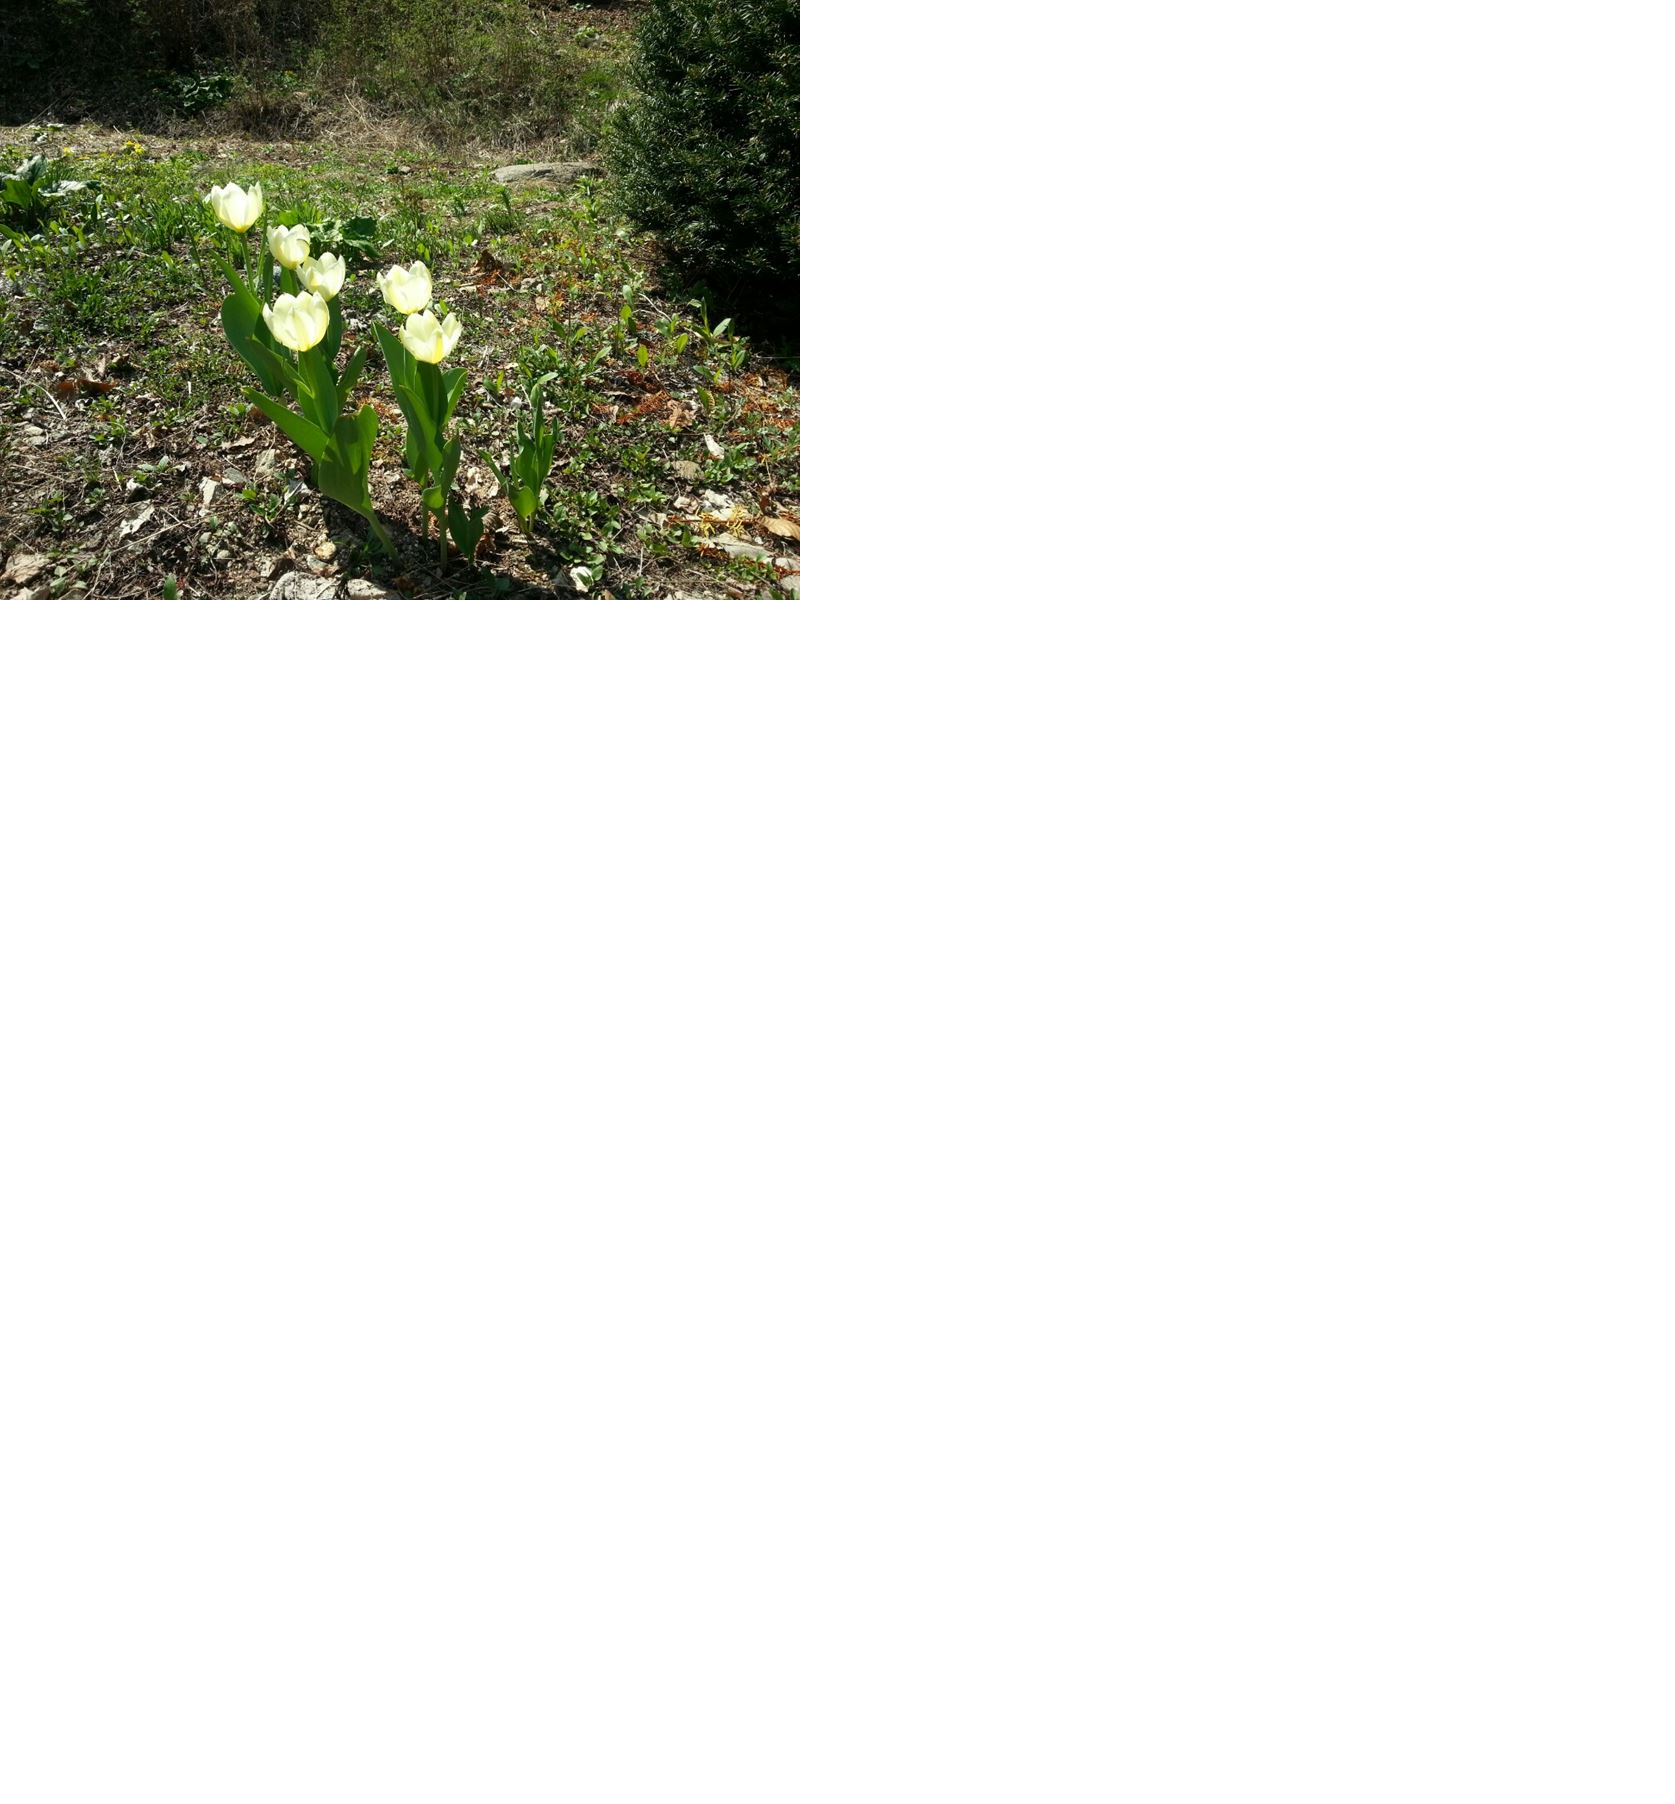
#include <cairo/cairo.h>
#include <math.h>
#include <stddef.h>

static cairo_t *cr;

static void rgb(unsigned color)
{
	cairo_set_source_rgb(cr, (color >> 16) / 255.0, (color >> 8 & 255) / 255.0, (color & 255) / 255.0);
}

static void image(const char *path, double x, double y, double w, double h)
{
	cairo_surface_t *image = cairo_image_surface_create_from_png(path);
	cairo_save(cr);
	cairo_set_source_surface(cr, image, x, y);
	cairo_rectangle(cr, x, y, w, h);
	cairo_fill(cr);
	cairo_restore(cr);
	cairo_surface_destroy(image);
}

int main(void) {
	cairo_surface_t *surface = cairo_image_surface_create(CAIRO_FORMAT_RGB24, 1675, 1804);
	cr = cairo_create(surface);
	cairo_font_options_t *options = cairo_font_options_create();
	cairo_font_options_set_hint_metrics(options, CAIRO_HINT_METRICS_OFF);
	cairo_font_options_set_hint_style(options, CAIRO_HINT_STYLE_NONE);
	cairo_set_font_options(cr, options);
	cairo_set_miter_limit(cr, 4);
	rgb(0xffffff);
	cairo_paint(cr);
	image("img/1.png", 0, 0, 800, 600);
	cairo_surface_write_to_png(surface, "page.png");
	cairo_font_options_destroy(options);
	cairo_destroy(cr);
	cairo_surface_destroy(surface);
	return 0;
}
